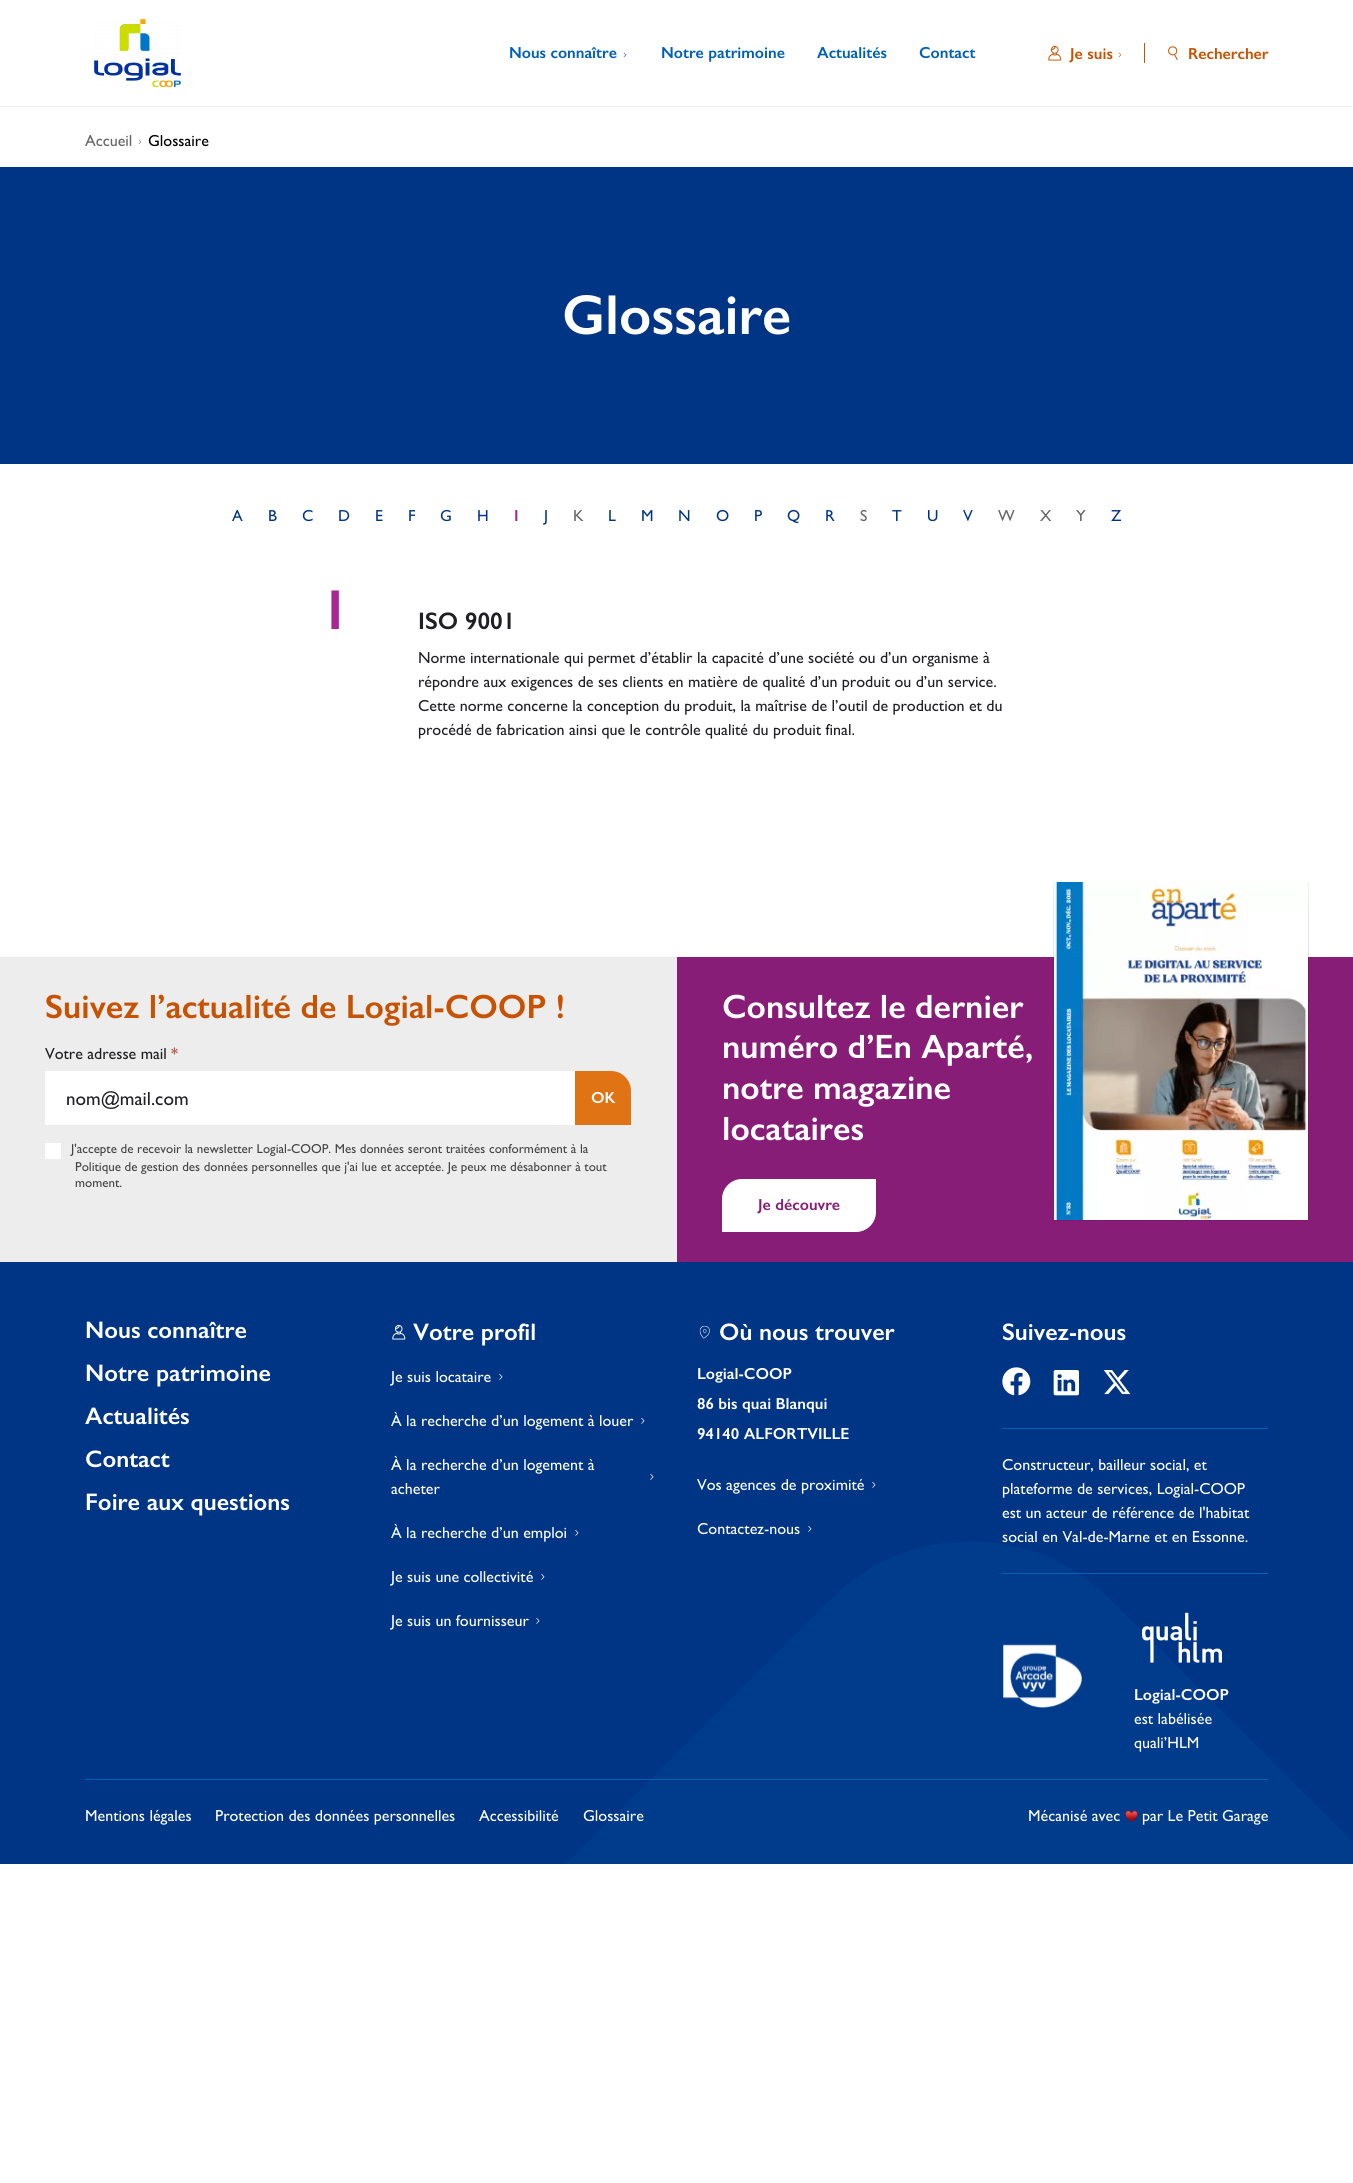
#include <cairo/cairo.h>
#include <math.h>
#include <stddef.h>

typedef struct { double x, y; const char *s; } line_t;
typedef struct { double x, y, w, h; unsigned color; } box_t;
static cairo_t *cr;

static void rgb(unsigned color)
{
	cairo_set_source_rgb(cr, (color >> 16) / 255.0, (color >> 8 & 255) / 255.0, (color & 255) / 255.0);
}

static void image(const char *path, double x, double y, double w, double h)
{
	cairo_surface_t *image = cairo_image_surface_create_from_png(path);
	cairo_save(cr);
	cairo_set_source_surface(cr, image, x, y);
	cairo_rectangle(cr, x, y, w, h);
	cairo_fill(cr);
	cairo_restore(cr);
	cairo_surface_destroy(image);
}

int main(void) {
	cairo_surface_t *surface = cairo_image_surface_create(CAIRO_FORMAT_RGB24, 1353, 2183);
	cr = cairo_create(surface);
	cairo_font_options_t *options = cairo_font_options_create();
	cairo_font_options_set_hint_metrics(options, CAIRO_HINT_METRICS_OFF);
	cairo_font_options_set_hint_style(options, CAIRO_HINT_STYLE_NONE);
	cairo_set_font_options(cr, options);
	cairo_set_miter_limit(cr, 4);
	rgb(0xffffff);
	cairo_paint(cr);
	rgb(0xededed);
	cairo_rectangle(cr, 0, 106, 1353, 1);
	cairo_fill(cr);
	image("img/1.png", 94, 19, 87, 68);
	image("img/2.png", 623, 52, 4, 6);
	rgb(0xc65202);
	cairo_rectangle(cr, 1144, 43, 1, 20);
	cairo_fill(cr);
	image("img/3.png", 1048, 45, 14, 16);
	image("img/4.png", 1118, 52, 4, 6);
	image("img/5.png", 1168, 46, 10, 14);
	image("img/6.png", 138, 139, 4, 6);
	{
		static const box_t items[] = {
			{0, 167, 1353, 297, 0x003585},
			{0, 957, 677, 305, 0xededed},
			{45, 1071, 530, 54, 0xffffff},
		};
		for (size_t i = 0; i < sizeof items / sizeof *items; i++) {
			rgb(items[i].color);
			cairo_rectangle(cr, items[i].x, items[i].y, items[i].w, items[i].h);
			cairo_fill(cr);
		}
	}
	rgb(0xe07314);
	cairo_new_path(cr);
	cairo_move_to(cr, 575, 1071);
	cairo_line_to(cr, 611, 1071);
	cairo_curve_to(cr, 622, 1071, 631, 1080, 631, 1091);
	cairo_line_to(cr, 631, 1125);
	cairo_line_to(cr, 575, 1125);
	cairo_close_path(cr);
	cairo_fill(cr);
	rgb(0xffffff);
	cairo_rectangle(cr, 45, 1143, 16, 16);
	cairo_fill(cr);
	rgb(0x871d76);
	cairo_rectangle(cr, 677, 957, 676, 305);
	cairo_fill(cr);
	rgb(0xffffff);
	cairo_new_path(cr);
	cairo_move_to(cr, 742, 1179);
	cairo_line_to(cr, 876, 1179);
	cairo_line_to(cr, 876, 1212);
	cairo_curve_to(cr, 876, 1223, 867, 1232, 856, 1232);
	cairo_line_to(cr, 722, 1232);
	cairo_line_to(cr, 722, 1199);
	cairo_curve_to(cr, 722, 1188, 731, 1179, 742, 1179);
	cairo_close_path(cr);
	cairo_fill(cr);
	image("img/7.png", 1053, 882, 256, 339);
	rgb(0x003585);
	cairo_rectangle(cr, 0, 1262, 1353, 602);
	cairo_fill(cr);
	cairo_save(cr);
	cairo_rectangle(cr, 393, 1541, 960, 323);
	cairo_clip(cr);
	rgb(0x003b8c);
	cairo_new_path(cr);
	cairo_move_to(cr, 393, 2037);
	cairo_line_to(cr, 831, 1599);
	cairo_curve_to(cr, 908, 1522, 1033, 1522, 1110, 1599);
	cairo_line_to(cr, 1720, 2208);
	cairo_line_to(cr, 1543, 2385);
	cairo_curve_to(cr, 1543, 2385, 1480, 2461, 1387, 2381);
	cairo_line_to(cr, 977, 1972);
	cairo_line_to(cr, 653, 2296);
	cairo_close_path(cr);
	cairo_fill(cr);
	cairo_restore(cr);
	rgb(0x0060b8);
	cairo_rectangle(cr, 85, 1779, 1183, 1);
	cairo_fill(cr);
	image("img/8.png", 392, 1324, 14, 16);
	image("img/9.png", 499, 1374, 4, 6);
	image("img/9.png", 641, 1418, 4, 6);
	image("img/9.png", 650, 1474, 4, 6);
	image("img/9.png", 575, 1530, 4, 6);
	image("img/9.png", 541, 1574, 4, 6);
	image("img/9.png", 536, 1618, 4, 6);
	image("img/10.png", 699, 1325, 11, 14);
	image("img/9.png", 872, 1482, 4, 6);
	image("img/9.png", 808, 1526, 4, 6);
	cairo_rectangle(cr, 1002, 1428, 266, 1);
	cairo_fill(cr);
	image("img/11.png", 1002, 1367, 29, 29);
	image("img/12.png", 1053, 1370, 26, 26);
	image("img/13.png", 1103, 1370, 28, 25);
	cairo_rectangle(cr, 1002, 1573, 266, 1);
	cairo_fill(cr);
	image("img/14.png", 1003, 1644, 79, 64);
	image("img/15.png", 1142, 1612, 80, 51);
	image("img/16.png", 1125, 1810, 13, 13);
	cairo_select_font_face(cr, "Gill Sans SemiBold", CAIRO_FONT_SLANT_NORMAL, CAIRO_FONT_WEIGHT_NORMAL);
	cairo_set_font_size(cr, 16);
	{
		static const line_t items[] = {
			{509, 58, "Nous connaître"},
			{661, 58, "Notre patrimoine"},
			{817, 58, "Actualités"},
			{919, 58, "Contact"},
		};
		for (size_t i = 0; i < sizeof items / sizeof *items; i++) {
			cairo_move_to(cr, items[i].x, items[i].y);
			cairo_show_text(cr, items[i].s);
		}
	}
	rgb(0xc65202);
	cairo_move_to(cr, 1070, 59);
	cairo_show_text(cr, "Je suis");
	cairo_move_to(cr, 1188, 59);
	cairo_show_text(cr, "Rechercher");
	cairo_select_font_face(cr, "Gill Sans", CAIRO_FONT_SLANT_NORMAL, CAIRO_FONT_WEIGHT_NORMAL);
	rgb(0x656565);
	cairo_move_to(cr, 85, 146);
	cairo_show_text(cr, "Accueil");
	rgb(0x000000);
	cairo_move_to(cr, 148, 146);
	cairo_show_text(cr, "Glossaire");
	cairo_select_font_face(cr, "Gill Sans SemiBold", CAIRO_FONT_SLANT_NORMAL, CAIRO_FONT_WEIGHT_NORMAL);
	cairo_set_font_size(cr, 56.5);
	rgb(0xffffff);
	cairo_move_to(cr, 562, 334);
	cairo_show_text(cr, "Glossaire");
	cairo_select_font_face(cr, "Gill Sans", CAIRO_FONT_SLANT_NORMAL, CAIRO_FONT_WEIGHT_NORMAL);
	cairo_set_font_size(cr, 16);
	rgb(0x003585);
	{
		static const line_t items[] = {
			{232, 521, "A"},
			{268, 521, "B"},
			{302, 521, "C"},
			{338, 521, "D"},
			{375, 521, "E"},
			{408, 521, "F"},
			{440, 521, "G"},
			{477, 521, "H"},
		};
		for (size_t i = 0; i < sizeof items / sizeof *items; i++) {
			cairo_move_to(cr, items[i].x, items[i].y);
			cairo_show_text(cr, items[i].s);
		}
	}
	cairo_select_font_face(cr, "Gill Sans SemiBold", CAIRO_FONT_SLANT_NORMAL, CAIRO_FONT_WEIGHT_NORMAL);
	rgb(0xaa2695);
	cairo_move_to(cr, 514, 521);
	cairo_show_text(cr, "I");
	cairo_select_font_face(cr, "Gill Sans", CAIRO_FONT_SLANT_NORMAL, CAIRO_FONT_WEIGHT_NORMAL);
	rgb(0x003585);
	cairo_move_to(cr, 544, 521);
	cairo_show_text(cr, "J");
	rgb(0x656565);
	cairo_move_to(cr, 573, 521);
	cairo_show_text(cr, "K");
	rgb(0x003585);
	{
		static const line_t items[] = {
			{608, 521, "L"},
			{641, 521, "M"},
			{678, 521, "N"},
			{716, 521, "O"},
			{754, 521, "P"},
			{787, 521, "Q"},
			{825, 521, "R"},
		};
		for (size_t i = 0; i < sizeof items / sizeof *items; i++) {
			cairo_move_to(cr, items[i].x, items[i].y);
			cairo_show_text(cr, items[i].s);
		}
	}
	rgb(0x656565);
	cairo_move_to(cr, 860, 521);
	cairo_show_text(cr, "S");
	rgb(0x003585);
	{
		static const line_t items[] = {
			{892, 521, "T"},
			{927, 521, "U"},
			{963, 521, "V"},
		};
		for (size_t i = 0; i < sizeof items / sizeof *items; i++) {
			cairo_move_to(cr, items[i].x, items[i].y);
			cairo_show_text(cr, items[i].s);
		}
	}
	rgb(0x656565);
	{
		static const line_t items[] = {
			{998, 521, "W"},
			{1040, 521, "X"},
			{1076, 521, "Y"},
		};
		for (size_t i = 0; i < sizeof items / sizeof *items; i++) {
			cairo_move_to(cr, items[i].x, items[i].y);
			cairo_show_text(cr, items[i].s);
		}
	}
	rgb(0x003585);
	cairo_move_to(cr, 1111, 521);
	cairo_show_text(cr, "Z");
	cairo_select_font_face(cr, "Gill Sans SemiBold", CAIRO_FONT_SLANT_NORMAL, CAIRO_FONT_WEIGHT_NORMAL);
	cairo_set_font_size(cr, 56.5);
	rgb(0xaa2695);
	cairo_move_to(cr, 327, 629);
	cairo_show_text(cr, "I");
	cairo_set_font_size(cr, 24);
	rgb(0x202024);
	cairo_move_to(cr, 418, 629);
	cairo_show_text(cr, "ISO 9001");
	cairo_select_font_face(cr, "Gill Sans", CAIRO_FONT_SLANT_NORMAL, CAIRO_FONT_WEIGHT_NORMAL);
	cairo_set_font_size(cr, 16);
	{
		static const line_t items[] = {
			{418, 663, "Norme internationale qui permet d’établir la capacité d’une société ou d’un organisme à"},
			{418, 687, "répondre aux exigences de ses clients en matière de qualité d’un produit ou d’un service."},
			{418, 711, "Cette norme concerne la conception du produit, la maîtrise de l’outil de production et du"},
			{418, 735, "procédé de fabrication ainsi que le contrôle qualité du produit final."},
		};
		for (size_t i = 0; i < sizeof items / sizeof *items; i++) {
			cairo_move_to(cr, items[i].x, items[i].y);
			cairo_show_text(cr, items[i].s);
		}
	}
	cairo_select_font_face(cr, "Gill Sans SemiBold", CAIRO_FONT_SLANT_NORMAL, CAIRO_FONT_WEIGHT_NORMAL);
	cairo_set_font_size(cr, 33.8);
	rgb(0xc65202);
	cairo_move_to(cr, 45, 1018);
	cairo_show_text(cr, "Suivez l’actualité de Logial-COOP !");
	cairo_select_font_face(cr, "Gill Sans", CAIRO_FONT_SLANT_NORMAL, CAIRO_FONT_WEIGHT_NORMAL);
	cairo_set_font_size(cr, 16);
	rgb(0x202024);
	cairo_move_to(cr, 45, 1059);
	cairo_show_text(cr, "Votre adresse mail");
	cairo_select_font_face(cr, "Gill Sans SemiBold", CAIRO_FONT_SLANT_NORMAL, CAIRO_FONT_WEIGHT_NORMAL);
	rgb(0xb94a48);
	cairo_move_to(cr, 171, 1059);
	cairo_show_text(cr, "*");
	cairo_select_font_face(cr, "Gill Sans", CAIRO_FONT_SLANT_NORMAL, CAIRO_FONT_WEIGHT_NORMAL);
	cairo_set_font_size(cr, 19);
	rgb(0x202024);
	cairo_move_to(cr, 66, 1105);
	cairo_show_text(cr, "nom@mail.com");
	cairo_select_font_face(cr, "Gill Sans SemiBold", CAIRO_FONT_SLANT_NORMAL, CAIRO_FONT_WEIGHT_NORMAL);
	cairo_set_font_size(cr, 16);
	rgb(0xffffff);
	cairo_move_to(cr, 591, 1103);
	cairo_show_text(cr, "OK");
	cairo_select_font_face(cr, "Gill Sans", CAIRO_FONT_SLANT_NORMAL, CAIRO_FONT_WEIGHT_NORMAL);
	cairo_set_font_size(cr, 13);
	rgb(0x444444);
	{
		static const line_t items[] = {
			{71, 1153, "J'accepte de recevoir la newsletter Logial-COOP. Mes données seront traitées conformément à la"},
			{75, 1171, "Politique de gestion des données personnelles que j'ai lue et acceptée. Je peux me désabonner à tout"},
			{75, 1187, "moment."},
		};
		for (size_t i = 0; i < sizeof items / sizeof *items; i++) {
			cairo_move_to(cr, items[i].x, items[i].y);
			cairo_show_text(cr, items[i].s);
		}
	}
	cairo_select_font_face(cr, "Gill Sans SemiBold", CAIRO_FONT_SLANT_NORMAL, CAIRO_FONT_WEIGHT_NORMAL);
	cairo_set_font_size(cr, 33.8);
	rgb(0xffffff);
	{
		static const line_t items[] = {
			{722, 1018, "Consultez le dernier"},
			{722, 1058, "numéro d’En Aparté,"},
			{722, 1099, "notre magazine"},
			{722, 1140, "locataires"},
		};
		for (size_t i = 0; i < sizeof items / sizeof *items; i++) {
			cairo_move_to(cr, items[i].x, items[i].y);
			cairo_show_text(cr, items[i].s);
		}
	}
	cairo_set_font_size(cr, 16);
	rgb(0x871d76);
	cairo_move_to(cr, 758, 1210);
	cairo_show_text(cr, "Je découvre");
	cairo_set_font_size(cr, 24);
	rgb(0xffffff);
	{
		static const line_t items[] = {
			{85, 1338, "Nous connaître"},
			{85, 1381, "Notre patrimoine"},
			{85, 1424, "Actualités"},
			{85, 1467, "Contact"},
			{85, 1510, "Foire aux questions"},
			{413, 1340, "Votre profil"},
		};
		for (size_t i = 0; i < sizeof items / sizeof *items; i++) {
			cairo_move_to(cr, items[i].x, items[i].y);
			cairo_show_text(cr, items[i].s);
		}
	}
	cairo_select_font_face(cr, "Gill Sans", CAIRO_FONT_SLANT_NORMAL, CAIRO_FONT_WEIGHT_NORMAL);
	cairo_set_font_size(cr, 16);
	{
		static const line_t items[] = {
			{391, 1382, "Je suis locataire"},
			{391, 1426, "À la recherche d’un logement à louer"},
			{391, 1470, "À la recherche d’un logement à"},
			{391, 1494, "acheter"},
			{391, 1538, "À la recherche d’un emploi"},
			{391, 1582, "Je suis une collectivité"},
			{391, 1626, "Je suis un fournisseur"},
		};
		for (size_t i = 0; i < sizeof items / sizeof *items; i++) {
			cairo_move_to(cr, items[i].x, items[i].y);
			cairo_show_text(cr, items[i].s);
		}
	}
	cairo_select_font_face(cr, "Gill Sans SemiBold", CAIRO_FONT_SLANT_NORMAL, CAIRO_FONT_WEIGHT_NORMAL);
	cairo_set_font_size(cr, 24);
	cairo_move_to(cr, 719, 1340);
	cairo_show_text(cr, "Où nous trouver");
	cairo_set_font_size(cr, 16);
	{
		static const line_t items[] = {
			{697, 1379, "Logial-COOP"},
			{697, 1409, "86 bis quai Blanqui"},
			{697, 1439, "94140 ALFORTVILLE"},
		};
		for (size_t i = 0; i < sizeof items / sizeof *items; i++) {
			cairo_move_to(cr, items[i].x, items[i].y);
			cairo_show_text(cr, items[i].s);
		}
	}
	cairo_select_font_face(cr, "Gill Sans", CAIRO_FONT_SLANT_NORMAL, CAIRO_FONT_WEIGHT_NORMAL);
	cairo_move_to(cr, 697, 1490);
	cairo_show_text(cr, "Vos agences de proximité");
	cairo_move_to(cr, 697, 1534);
	cairo_show_text(cr, "Contactez-nous");
	cairo_select_font_face(cr, "Gill Sans SemiBold", CAIRO_FONT_SLANT_NORMAL, CAIRO_FONT_WEIGHT_NORMAL);
	cairo_set_font_size(cr, 24);
	cairo_move_to(cr, 1002, 1340);
	cairo_show_text(cr, "Suivez-nous");
	cairo_select_font_face(cr, "Gill Sans", CAIRO_FONT_SLANT_NORMAL, CAIRO_FONT_WEIGHT_NORMAL);
	cairo_set_font_size(cr, 16);
	{
		static const line_t items[] = {
			{1002, 1470, "Constructeur, bailleur social, et"},
			{1002, 1494, "plateforme de services, Logial-COOP"},
			{1002, 1518, "est un acteur de référence de l'habitat"},
			{1002, 1542, "social en Val-de-Marne et en Essonne."},
		};
		for (size_t i = 0; i < sizeof items / sizeof *items; i++) {
			cairo_move_to(cr, items[i].x, items[i].y);
			cairo_show_text(cr, items[i].s);
		}
	}
	cairo_select_font_face(cr, "Gill Sans SemiBold", CAIRO_FONT_SLANT_NORMAL, CAIRO_FONT_WEIGHT_NORMAL);
	cairo_move_to(cr, 1134, 1700);
	cairo_show_text(cr, "Logial-COOP");
	cairo_select_font_face(cr, "Gill Sans", CAIRO_FONT_SLANT_NORMAL, CAIRO_FONT_WEIGHT_NORMAL);
	{
		static const line_t items[] = {
			{1134, 1724, "est labélisée"},
			{1134, 1748, "quali’HLM"},
			{85, 1821, "Mentions légales"},
			{215, 1821, "Protection des données personnelles"},
			{479, 1821, "Accessibilité"},
			{583, 1821, "Glossaire"},
			{1028, 1821, "Mécanisé avec"},
			{1142, 1821, "par Le Petit Garage"},
		};
		for (size_t i = 0; i < sizeof items / sizeof *items; i++) {
			cairo_move_to(cr, items[i].x, items[i].y);
			cairo_show_text(cr, items[i].s);
		}
	}
	cairo_surface_write_to_png(surface, "page.png");
	cairo_font_options_destroy(options);
	cairo_destroy(cr);
	cairo_surface_destroy(surface);
	return 0;
}
